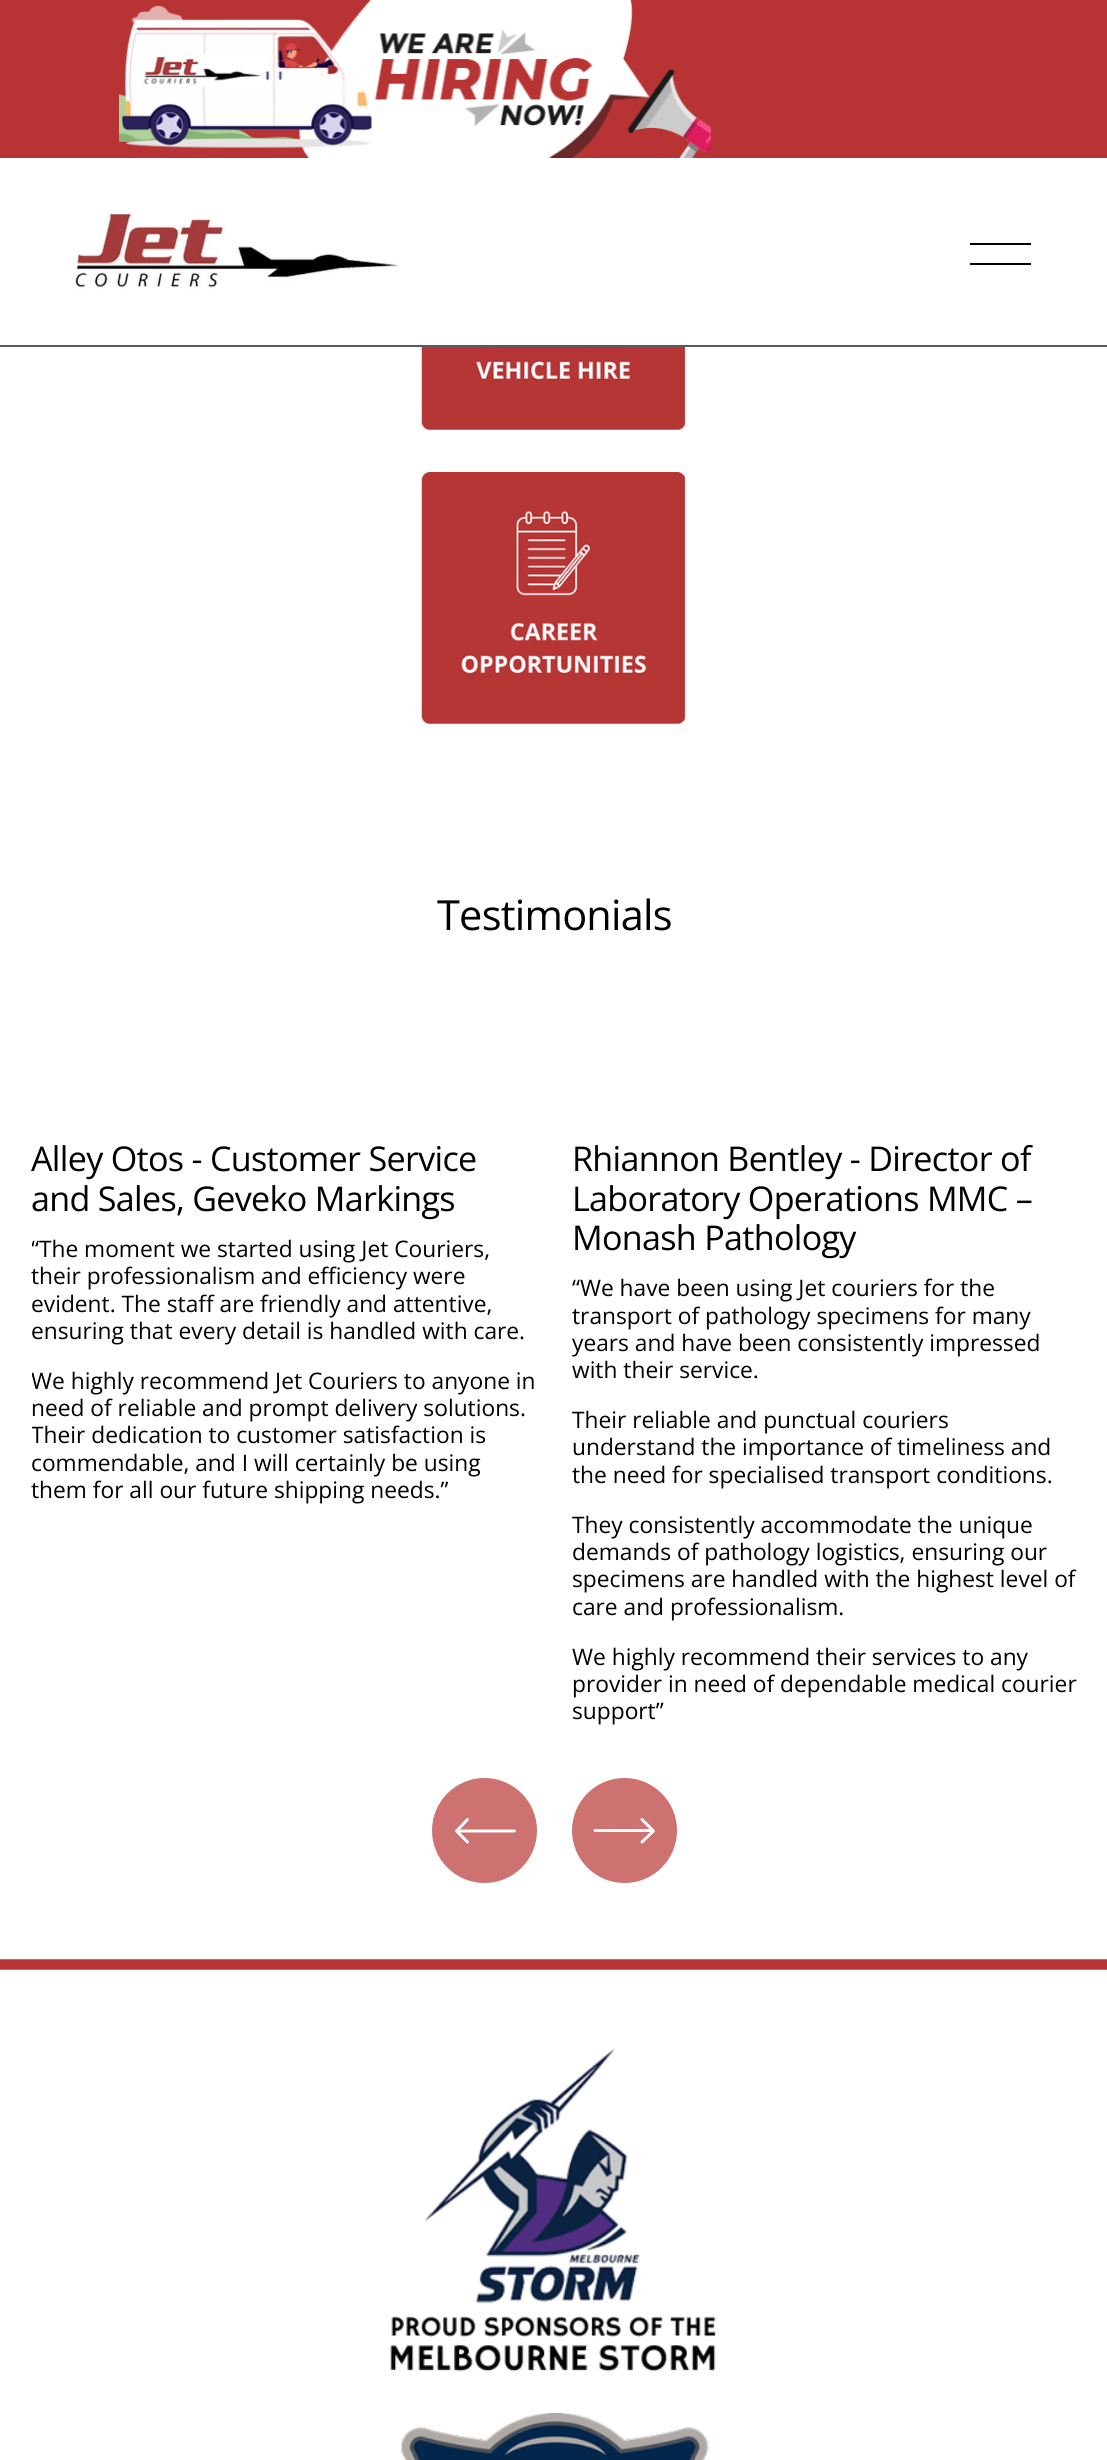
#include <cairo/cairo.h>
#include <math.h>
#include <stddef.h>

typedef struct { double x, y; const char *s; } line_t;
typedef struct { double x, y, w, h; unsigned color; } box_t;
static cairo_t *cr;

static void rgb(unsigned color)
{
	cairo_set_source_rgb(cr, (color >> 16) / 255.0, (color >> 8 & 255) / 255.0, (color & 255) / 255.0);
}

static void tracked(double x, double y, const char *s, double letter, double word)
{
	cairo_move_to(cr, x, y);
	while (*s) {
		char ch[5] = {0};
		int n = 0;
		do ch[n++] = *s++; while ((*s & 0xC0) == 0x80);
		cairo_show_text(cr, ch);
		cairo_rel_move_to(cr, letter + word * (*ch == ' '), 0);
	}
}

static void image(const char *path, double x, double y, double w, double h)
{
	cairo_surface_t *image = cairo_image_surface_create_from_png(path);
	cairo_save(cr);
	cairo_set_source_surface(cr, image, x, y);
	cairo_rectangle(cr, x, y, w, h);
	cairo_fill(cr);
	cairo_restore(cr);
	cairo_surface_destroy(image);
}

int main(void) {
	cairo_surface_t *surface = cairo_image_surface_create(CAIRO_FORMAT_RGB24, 1107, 2460);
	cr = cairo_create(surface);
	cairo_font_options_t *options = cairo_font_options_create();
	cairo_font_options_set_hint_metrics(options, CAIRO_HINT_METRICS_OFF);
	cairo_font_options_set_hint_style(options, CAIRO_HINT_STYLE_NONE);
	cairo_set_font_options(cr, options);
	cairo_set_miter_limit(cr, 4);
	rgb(0xffffff);
	cairo_paint(cr);
	rgb(0xb83434);
	cairo_rectangle(cr, 0, 0, 1107, 158);
	cairo_fill(cr);
	image("img/1.png", 119, 0, 592, 158);
	image("img/2.png", 72, 211, 326, 78);
	{
		static const box_t items[] = {
			{970, 243, 61, 2, 0x000000},
			{970, 263, 61, 2, 0x000000},
			{0, 345, 1107, 2, 0x5a5a5a},
		};
		for (size_t i = 0; i < sizeof items / sizeof *items; i++) {
			rgb(items[i].color);
			cairo_rectangle(cr, items[i].x, items[i].y, items[i].w, items[i].h);
			cairo_fill(cr);
		}
	}
	image("img/3.png", 421, 347, 265, 83);
	image("img/4.png", 421, 472, 265, 252);
	rgb(0xcd7171);
	cairo_arc(cr, 484.5, 1830.5, 52.5, 0, 2 * M_PI);
	cairo_fill(cr);
	cairo_new_path(cr);
	cairo_move_to(cr, 467.5, 1842);
	cairo_line_to(cr, 456.5, 1831);
	cairo_line_to(cr, 467.5, 1819.5);
	cairo_move_to(cr, 514.5, 1831);
	cairo_line_to(cr, 458, 1831);
	rgb(0xffffff);
	cairo_set_line_width(cr, 2.9);
	cairo_set_line_cap(cr, CAIRO_LINE_CAP_ROUND);
	cairo_set_line_join(cr, CAIRO_LINE_JOIN_ROUND);
	cairo_stroke(cr);
	rgb(0xcd7171);
	cairo_arc(cr, 624.5, 1830.5, 52.5, 0, 2 * M_PI);
	cairo_fill(cr);
	cairo_new_path(cr);
	cairo_move_to(cr, 642, 1819.5);
	cairo_line_to(cr, 653.5, 1831);
	cairo_line_to(cr, 642, 1842);
	cairo_move_to(cr, 595, 1830.5);
	cairo_line_to(cr, 651.5, 1830.5);
	rgb(0xffffff);
	cairo_stroke(cr);
	cairo_new_path(cr);
	cairo_move_to(cr, -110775, 1386.5);
	cairo_line_to(cr, -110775, 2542);
	cairo_move_to(cr, 0, 1964.5);
	cairo_line_to(cr, 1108, 1964.5);
	rgb(0xb83434);
	cairo_set_line_width(cr, 10.5);
	cairo_set_line_cap(cr, CAIRO_LINE_CAP_SQUARE);
	cairo_set_line_join(cr, CAIRO_LINE_JOIN_MITER);
	cairo_stroke(cr);
	image("img/5.png", 390, 2048, 326, 324);
	image("img/6.png", 401, 2412, 308, 48);
	cairo_select_font_face(cr, "Open Sans", CAIRO_FONT_SLANT_NORMAL, CAIRO_FONT_WEIGHT_NORMAL);
	cairo_set_font_size(cr, 41.5);
	rgb(0x000000);
	tracked(437, 930, "Testimonials", -0.75, 0);
	cairo_set_font_size(cr, 34.1);
	tracked(31, 1171, "Alley Otos - Customer Service", -0.7, 0);
	tracked(31, 1211, "and Sales, Geveko Markings", -0.7, 0);
	cairo_save(cr);
	cairo_rectangle(cr, 32, 989, 1044, 737);
	cairo_clip(cr);
	cairo_set_font_size(cr, 22.75);
	cairo_move_to(cr, 31, 1257);
	cairo_show_text(cr, "“The moment we started using Jet Couriers,");
	cairo_restore(cr);
	cairo_set_font_size(cr, 22.75);
	{
		static const line_t items[] = {
			{31, 1284, "their professionalism and efficiency were"},
			{31, 1312, "evident. The staff are friendly and attentive,"},
			{31, 1339, "ensuring that every detail is handled with care."},
		};
		for (size_t i = 0; i < sizeof items / sizeof *items; i++) {
			cairo_move_to(cr, items[i].x, items[i].y);
			cairo_show_text(cr, items[i].s);
		}
	}
	cairo_save(cr);
	cairo_rectangle(cr, 32, 989, 1044, 737);
	cairo_clip(cr);
	cairo_move_to(cr, 31, 1389);
	cairo_show_text(cr, "We highly recommend Jet Couriers to anyone in");
	cairo_restore(cr);
	cairo_move_to(cr, 31, 1416);
	cairo_show_text(cr, "need of reliable and prompt delivery solutions.");
	cairo_save(cr);
	cairo_rectangle(cr, 32, 989, 1044, 737);
	cairo_clip(cr);
	cairo_move_to(cr, 31, 1443);
	cairo_show_text(cr, "Their dedication to customer satisfaction is");
	cairo_restore(cr);
	cairo_move_to(cr, 31, 1471);
	cairo_show_text(cr, "commendable, and I will certainly be using");
	cairo_move_to(cr, 31, 1498);
	cairo_show_text(cr, "them for all our future shipping needs.”");
	cairo_set_font_size(cr, 34.1);
	{
		static const line_t items[] = {
			{572, 1171, "Rhiannon Bentley - Director of"},
			{572, 1211, "Laboratory Operations MMC –"},
			{572, 1250, "Monash Pathology"},
		};
		for (size_t i = 0; i < sizeof items / sizeof *items; i++) {
			tracked(items[i].x, items[i].y, items[i].s, -0.7, 0);
		}
	}
	cairo_set_font_size(cr, 22.75);
	{
		static const line_t items[] = {
			{572, 1296, "“We have been using Jet couriers for the"},
			{572, 1324, "transport of pathology specimens for many"},
			{572, 1351, "years and have been consistently impressed"},
			{572, 1378, "with their service."},
			{572, 1428, "Their reliable and punctual couriers"},
			{572, 1455, "understand the importance of timeliness and"},
			{572, 1483, "the need for specialised transport conditions."},
			{572, 1533, "They consistently accommodate the unique"},
			{572, 1560, "demands of pathology logistics, ensuring our"},
			{572, 1587, "specimens are handled with the highest level of"},
			{572, 1615, "care and professionalism."},
			{572, 1665, "We highly recommend their services to any"},
			{572, 1692, "provider in need of dependable medical courier"},
			{572, 1719, "support”"},
		};
		for (size_t i = 0; i < sizeof items / sizeof *items; i++) {
			cairo_move_to(cr, items[i].x, items[i].y);
			cairo_show_text(cr, items[i].s);
		}
	}
	cairo_surface_write_to_png(surface, "page.png");
	cairo_font_options_destroy(options);
	cairo_destroy(cr);
	cairo_surface_destroy(surface);
	return 0;
}
